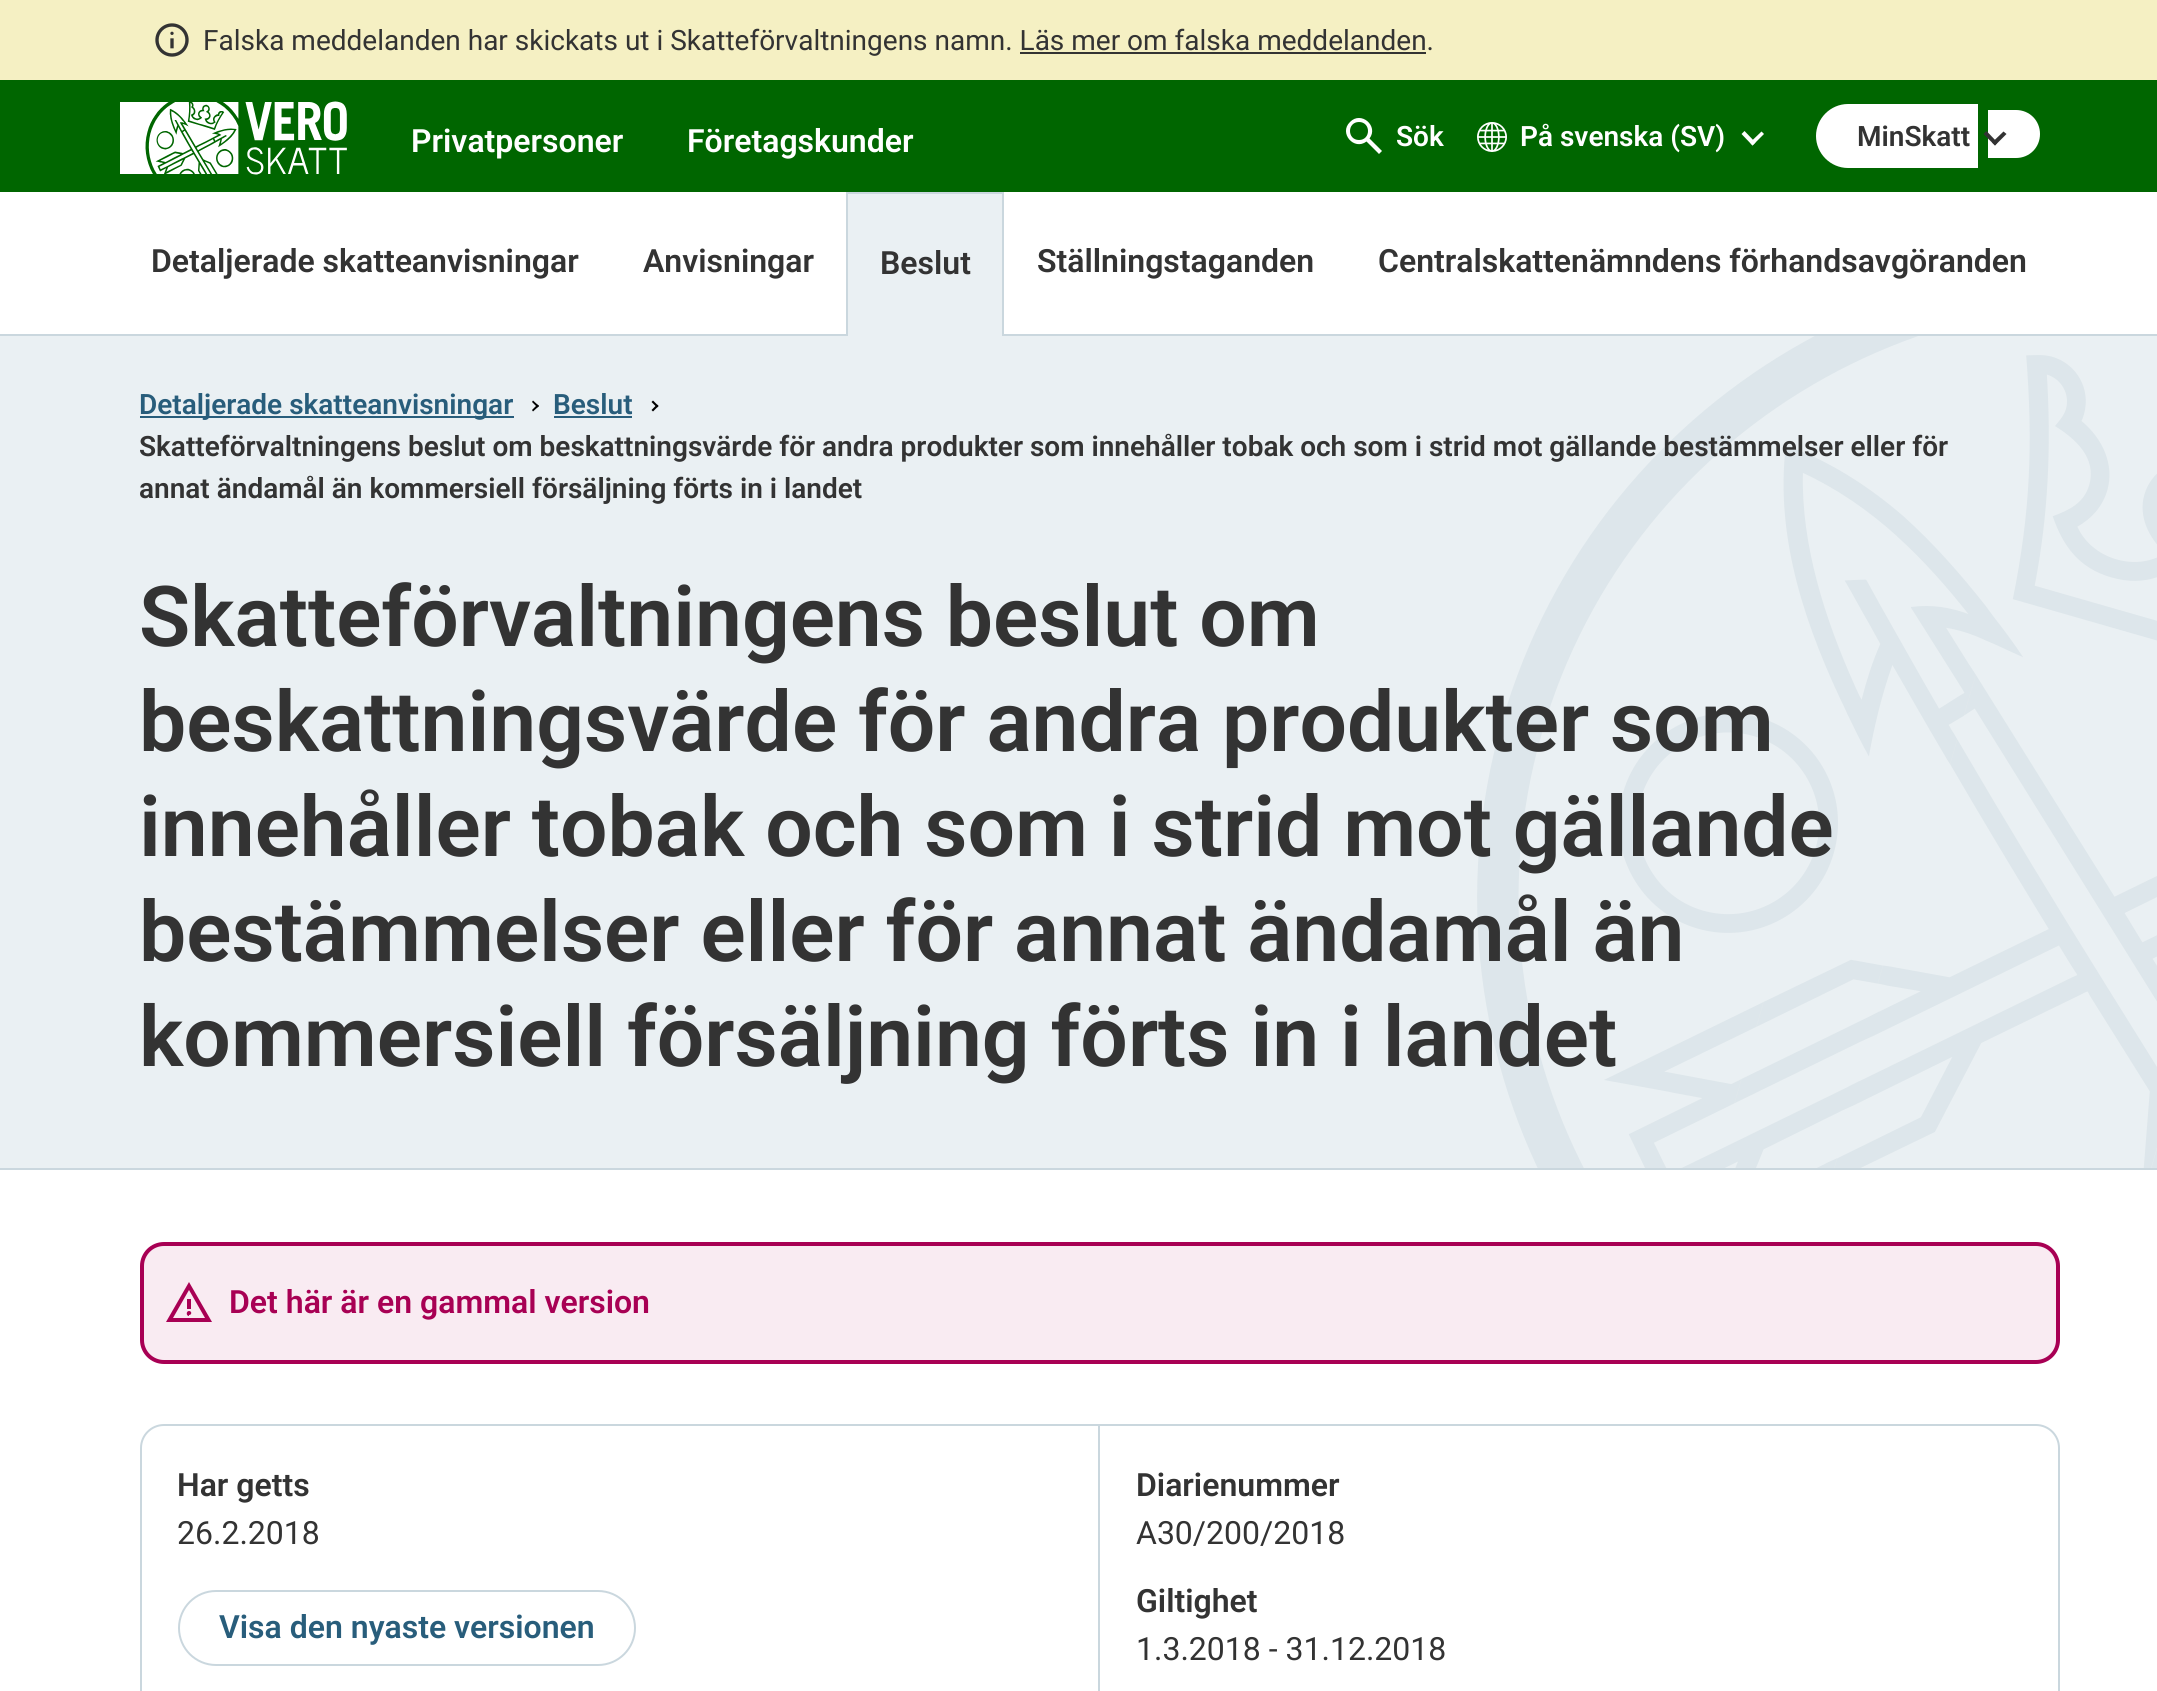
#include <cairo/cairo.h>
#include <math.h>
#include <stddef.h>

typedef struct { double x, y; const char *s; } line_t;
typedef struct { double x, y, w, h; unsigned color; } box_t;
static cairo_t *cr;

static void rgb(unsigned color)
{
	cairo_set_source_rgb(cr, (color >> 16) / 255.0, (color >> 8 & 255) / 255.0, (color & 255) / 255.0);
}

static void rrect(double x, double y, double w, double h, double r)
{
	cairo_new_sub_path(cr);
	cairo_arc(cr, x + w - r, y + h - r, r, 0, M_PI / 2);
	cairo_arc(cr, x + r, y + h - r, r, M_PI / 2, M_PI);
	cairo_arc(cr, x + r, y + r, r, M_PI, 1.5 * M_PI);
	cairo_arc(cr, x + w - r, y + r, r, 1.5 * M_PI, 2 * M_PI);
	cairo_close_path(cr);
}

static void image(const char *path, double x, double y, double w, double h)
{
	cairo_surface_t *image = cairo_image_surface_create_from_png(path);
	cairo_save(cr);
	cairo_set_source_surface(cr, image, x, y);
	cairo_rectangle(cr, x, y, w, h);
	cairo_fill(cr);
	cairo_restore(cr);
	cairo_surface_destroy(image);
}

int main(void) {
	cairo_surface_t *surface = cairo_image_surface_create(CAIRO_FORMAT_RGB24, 2157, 1691);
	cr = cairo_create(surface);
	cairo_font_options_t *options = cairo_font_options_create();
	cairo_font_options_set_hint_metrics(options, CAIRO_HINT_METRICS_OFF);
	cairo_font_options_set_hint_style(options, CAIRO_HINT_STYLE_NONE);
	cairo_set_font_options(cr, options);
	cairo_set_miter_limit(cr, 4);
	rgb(0xffffff);
	cairo_paint(cr);
	rgb(0xf5f0c3);
	cairo_rectangle(cr, 0, 0, 2157, 80);
	cairo_fill(cr);
	image("img/1.png", 155, 23, 34, 34);
	rgb(0x333333);
	cairo_rectangle(cr, 1020, 52, 406, 2);
	cairo_fill(cr);
	rgb(0x006600);
	cairo_rectangle(cr, 0, 80, 2157, 112);
	cairo_fill(cr);
	image("img/2.png", 120, 101, 227, 74);
	rgb(0xffffff);
	cairo_new_path(cr);
	cairo_move_to(cr, 1379, 154);
	cairo_line_to(cr, 1366.5, 141.5);
	cairo_curve_to(cr, 1354, 151, 1338.5, 133, 1350, 122);
	cairo_curve_to(cr, 1361, 110.5, 1379, 126, 1369.5, 138.5);
	cairo_line_to(cr, 1382, 151);
	cairo_close_path(cr);
	cairo_move_to(cr, 1359, 140);
	cairo_curve_to(cr, 1371, 140, 1371, 122, 1359, 122);
	cairo_curve_to(cr, 1347, 122, 1347, 140, 1359, 140);
	cairo_close_path(cr);
	cairo_fill(cr);
	image("img/3.png", 1477, 122, 30, 30);
	cairo_new_path(cr);
	cairo_move_to(cr, 1764, 134);
	cairo_line_to(cr, 1752.5, 145.5);
	cairo_line_to(cr, 1750, 142.5);
	cairo_line_to(cr, 1761.5, 131.5);
	cairo_close_path(cr);
	cairo_fill(cr);
	cairo_new_path(cr);
	cairo_move_to(cr, 1755.5, 142.5);
	cairo_line_to(cr, 1752.5, 145.5);
	cairo_line_to(cr, 1741.5, 134);
	cairo_line_to(cr, 1744.5, 131);
	cairo_close_path(cr);
	cairo_fill(cr);
	cairo_new_path(cr);
	cairo_move_to(cr, 1848, 104);
	cairo_line_to(cr, 1978, 104);
	cairo_line_to(cr, 1978, 168);
	cairo_line_to(cr, 1848, 168);
	cairo_curve_to(cr, 1830.5, 168, 1816, 153.5, 1816, 136);
	cairo_curve_to(cr, 1816, 118.5, 1830.5, 104, 1848, 104);
	cairo_close_path(cr);
	cairo_fill(cr);
	cairo_new_path(cr);
	cairo_move_to(cr, 1988, 110);
	cairo_line_to(cr, 2016, 110);
	cairo_curve_to(cr, 2029.5, 110, 2040, 120.5, 2040, 134);
	cairo_curve_to(cr, 2040, 147.5, 2029.5, 158, 2016, 158);
	cairo_line_to(cr, 1988, 158);
	cairo_close_path(cr);
	cairo_fill(cr);
	rgb(0x333333);
	cairo_new_path(cr);
	cairo_move_to(cr, 2006.5, 134);
	cairo_line_to(cr, 1995, 145.5);
	cairo_line_to(cr, 1992, 142.5);
	cairo_line_to(cr, 2003.5, 131.5);
	cairo_close_path(cr);
	cairo_fill(cr);
	cairo_new_path(cr);
	cairo_move_to(cr, 1997.5, 142.5);
	cairo_line_to(cr, 1995, 145.5);
	cairo_line_to(cr, 1983.5, 134);
	cairo_line_to(cr, 1986.5, 131);
	cairo_close_path(cr);
	cairo_fill(cr);
	{
		static const box_t items[] = {
			{0, 334, 2157, 2, 0xcad7de},
			{848, 194, 154, 142, 0xeaf0f3},
			{846, 192, 158, 2, 0xcad7de},
			{1002, 192, 2, 144, 0xcad7de},
			{846, 192, 2, 144, 0xcad7de},
			{0, 336, 2157, 832, 0xeaf0f3},
			{0, 1168, 2157, 2, 0xcad7de},
		};
		for (size_t i = 0; i < sizeof items / sizeof *items; i++) {
			rgb(items[i].color);
			cairo_rectangle(cr, items[i].x, items[i].y, items[i].w, items[i].h);
			cairo_fill(cr);
		}
	}
	image("img/4.png", 1477, 336, 680, 832);
	rgb(0x285d7b);
	cairo_rectangle(cr, 140, 416, 374, 2);
	cairo_fill(cr);
	rgb(0x000000);
	cairo_new_path(cr);
	cairo_move_to(cr, 533, 400.5);
	cairo_line_to(cr, 539, 406);
	cairo_line_to(cr, 537.5, 407.5);
	cairo_line_to(cr, 532, 402);
	cairo_close_path(cr);
	cairo_fill(cr);
	cairo_new_path(cr);
	cairo_move_to(cr, 537.5, 404.5);
	cairo_line_to(cr, 539, 406);
	cairo_line_to(cr, 533, 411.5);
	cairo_line_to(cr, 532, 410);
	cairo_close_path(cr);
	cairo_fill(cr);
	rgb(0x285d7b);
	cairo_rectangle(cr, 554, 416, 78, 2);
	cairo_fill(cr);
	rgb(0x000000);
	cairo_new_path(cr);
	cairo_move_to(cr, 653, 400.5);
	cairo_line_to(cr, 658.5, 406);
	cairo_line_to(cr, 657, 407.5);
	cairo_line_to(cr, 651.5, 402);
	cairo_close_path(cr);
	cairo_fill(cr);
	cairo_new_path(cr);
	cairo_move_to(cr, 657, 404.5);
	cairo_line_to(cr, 658.5, 406);
	cairo_line_to(cr, 653, 411.5);
	cairo_line_to(cr, 651.5, 410);
	cairo_close_path(cr);
	cairo_fill(cr);
	rgb(0xf9ebf2);
	rrect(142, 1244, 1916, 118, 22);
	cairo_fill_preserve(cr);
	rgb(0xa80054);
	cairo_set_line_width(cr, 4);
	cairo_stroke(cr);
	cairo_new_path(cr);
	cairo_move_to(cr, 166, 1322);
	cairo_line_to(cr, 189, 1282);
	cairo_line_to(cr, 212, 1322);
	cairo_close_path(cr);
	cairo_move_to(cr, 173, 1318);
	cairo_line_to(cr, 205, 1318);
	cairo_line_to(cr, 189, 1290);
	cairo_close_path(cr);
	cairo_move_to(cr, 189, 1315);
	cairo_curve_to(cr, 192, 1315, 192, 1311, 189, 1311);
	cairo_curve_to(cr, 186, 1311, 186, 1316, 189, 1316);
	cairo_close_path(cr);
	cairo_move_to(cr, 187, 1309);
	cairo_line_to(cr, 191, 1309);
	cairo_line_to(cr, 191, 1299);
	cairo_line_to(cr, 187, 1299);
	cairo_close_path(cr);
	cairo_fill(cr);
	rrect(141, 1425, 1918, 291, 23);
	rgb(0xcad7de);
	cairo_set_line_width(cr, 2);
	cairo_stroke(cr);
	rrect(179, 1591, 456, 74, 37);
	cairo_stroke(cr);
	cairo_rectangle(cr, 1098, 1426, 2, 265);
	cairo_fill(cr);
	cairo_select_font_face(cr, "Roboto", CAIRO_FONT_SLANT_NORMAL, CAIRO_FONT_WEIGHT_NORMAL);
	cairo_set_font_size(cr, 28);
	rgb(0x333333);
	cairo_move_to(cr, 203, 50);
	cairo_show_text(cr, "Falska meddelanden har skickats ut i Skatteförvaltningens namn. Läs mer om falska meddelanden.");
	cairo_select_font_face(cr, "Roboto SemiBold", CAIRO_FONT_SLANT_NORMAL, CAIRO_FONT_WEIGHT_NORMAL);
	cairo_set_font_size(cr, 32);
	rgb(0xffffff);
	cairo_move_to(cr, 411, 152);
	cairo_show_text(cr, "Privatpersoner");
	cairo_move_to(cr, 687, 152);
	cairo_show_text(cr, "Företagskunder");
	cairo_set_font_size(cr, 28);
	cairo_move_to(cr, 1396, 146);
	cairo_show_text(cr, "Sök");
	cairo_move_to(cr, 1520, 146);
	cairo_show_text(cr, "På svenska (SV)");
	rgb(0x333333);
	cairo_move_to(cr, 1857, 146);
	cairo_show_text(cr, "MinSkatt");
	cairo_set_font_size(cr, 32);
	{
		static const line_t items[] = {
			{151, 272, "Detaljerade skatteanvisningar"},
			{643, 272, "Anvisningar"},
			{880, 274, "Beslut"},
			{1037, 272, "Ställningstaganden"},
			{1378, 272, "Centralskattenämndens förhandsavgöranden"},
		};
		for (size_t i = 0; i < sizeof items / sizeof *items; i++) {
			cairo_move_to(cr, items[i].x, items[i].y);
			cairo_show_text(cr, items[i].s);
		}
	}
	cairo_set_font_size(cr, 28);
	rgb(0x285d7b);
	cairo_move_to(cr, 139, 414);
	cairo_show_text(cr, "Detaljerade skatteanvisningar");
	cairo_move_to(cr, 553, 414);
	cairo_show_text(cr, "Beslut");
	rgb(0x333333);
	cairo_move_to(cr, 139, 456);
	cairo_show_text(cr, "Skatteförvaltningens beslut om beskattningsvärde för andra produkter som innehåller tobak och som i strid mot gällande bestämmelser eller för");
	cairo_move_to(cr, 139, 498);
	cairo_show_text(cr, "annat ändamål än kommersiell försäljning förts in i landet");
	cairo_set_font_size(cr, 84);
	{
		static const line_t items[] = {
			{139, 646, "Skatteförvaltningens beslut om"},
			{139, 751, "beskattningsvärde för andra produkter som"},
			{139, 856, "innehåller tobak och som i strid mot gällande"},
			{139, 961, "bestämmelser eller för annat ändamål än"},
			{139, 1066, "kommersiell försäljning förts in i landet"},
		};
		for (size_t i = 0; i < sizeof items / sizeof *items; i++) {
			cairo_move_to(cr, items[i].x, items[i].y);
			cairo_show_text(cr, items[i].s);
		}
	}
	cairo_set_font_size(cr, 32);
	rgb(0xa80054);
	cairo_move_to(cr, 229, 1313);
	cairo_show_text(cr, "Det här är en gammal version");
	rgb(0x333333);
	cairo_move_to(cr, 177, 1496);
	cairo_show_text(cr, "Har getts");
	cairo_select_font_face(cr, "Roboto", CAIRO_FONT_SLANT_NORMAL, CAIRO_FONT_WEIGHT_NORMAL);
	cairo_move_to(cr, 177, 1544);
	cairo_show_text(cr, "26.2.2018");
	cairo_select_font_face(cr, "Roboto SemiBold", CAIRO_FONT_SLANT_NORMAL, CAIRO_FONT_WEIGHT_NORMAL);
	rgb(0x285d7b);
	cairo_move_to(cr, 219, 1638);
	cairo_show_text(cr, "Visa den nyaste versionen");
	rgb(0x333333);
	cairo_move_to(cr, 1136, 1496);
	cairo_show_text(cr, "Diarienummer");
	cairo_select_font_face(cr, "Roboto", CAIRO_FONT_SLANT_NORMAL, CAIRO_FONT_WEIGHT_NORMAL);
	cairo_move_to(cr, 1136, 1544);
	cairo_show_text(cr, "A30/200/2018");
	cairo_select_font_face(cr, "Roboto SemiBold", CAIRO_FONT_SLANT_NORMAL, CAIRO_FONT_WEIGHT_NORMAL);
	cairo_move_to(cr, 1136, 1612);
	cairo_show_text(cr, "Giltighet");
	cairo_select_font_face(cr, "Roboto", CAIRO_FONT_SLANT_NORMAL, CAIRO_FONT_WEIGHT_NORMAL);
	cairo_move_to(cr, 1136, 1660);
	cairo_show_text(cr, "1.3.2018 - 31.12.2018");
	cairo_surface_write_to_png(surface, "page.png");
	cairo_font_options_destroy(options);
	cairo_destroy(cr);
	cairo_surface_destroy(surface);
	return 0;
}
